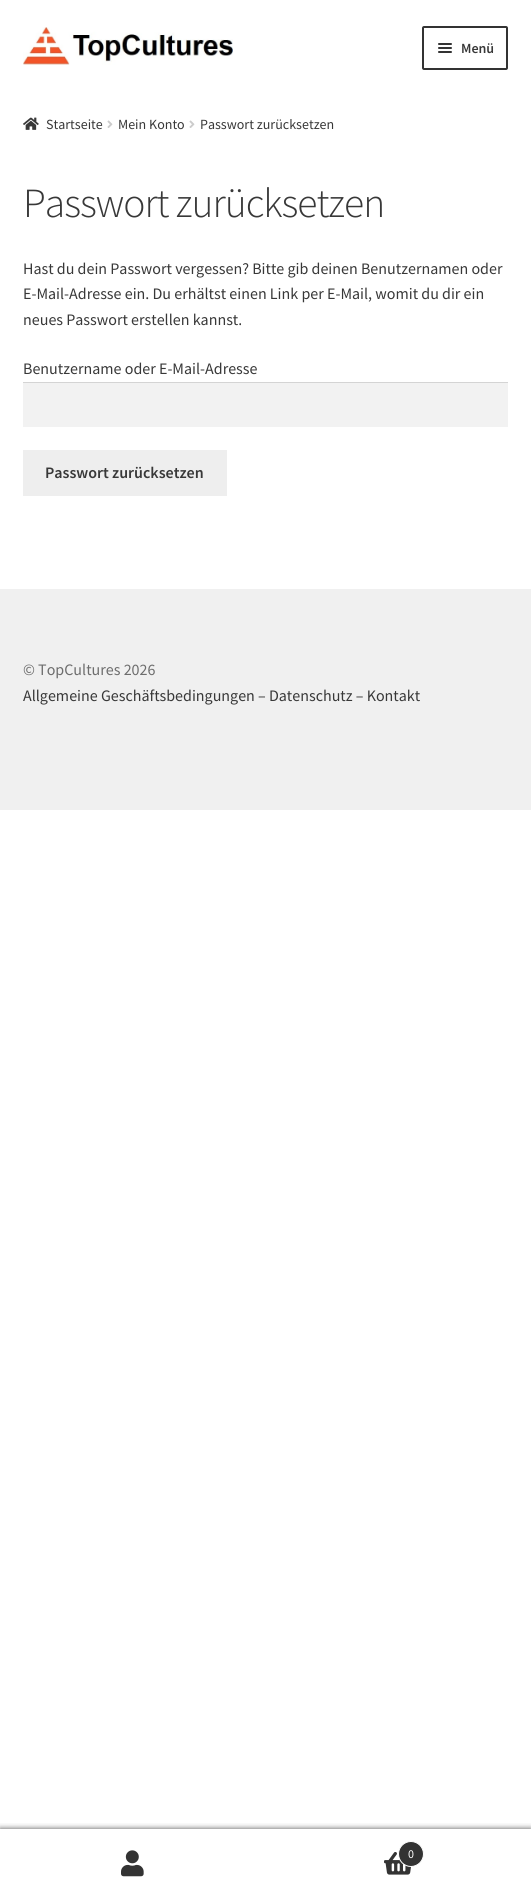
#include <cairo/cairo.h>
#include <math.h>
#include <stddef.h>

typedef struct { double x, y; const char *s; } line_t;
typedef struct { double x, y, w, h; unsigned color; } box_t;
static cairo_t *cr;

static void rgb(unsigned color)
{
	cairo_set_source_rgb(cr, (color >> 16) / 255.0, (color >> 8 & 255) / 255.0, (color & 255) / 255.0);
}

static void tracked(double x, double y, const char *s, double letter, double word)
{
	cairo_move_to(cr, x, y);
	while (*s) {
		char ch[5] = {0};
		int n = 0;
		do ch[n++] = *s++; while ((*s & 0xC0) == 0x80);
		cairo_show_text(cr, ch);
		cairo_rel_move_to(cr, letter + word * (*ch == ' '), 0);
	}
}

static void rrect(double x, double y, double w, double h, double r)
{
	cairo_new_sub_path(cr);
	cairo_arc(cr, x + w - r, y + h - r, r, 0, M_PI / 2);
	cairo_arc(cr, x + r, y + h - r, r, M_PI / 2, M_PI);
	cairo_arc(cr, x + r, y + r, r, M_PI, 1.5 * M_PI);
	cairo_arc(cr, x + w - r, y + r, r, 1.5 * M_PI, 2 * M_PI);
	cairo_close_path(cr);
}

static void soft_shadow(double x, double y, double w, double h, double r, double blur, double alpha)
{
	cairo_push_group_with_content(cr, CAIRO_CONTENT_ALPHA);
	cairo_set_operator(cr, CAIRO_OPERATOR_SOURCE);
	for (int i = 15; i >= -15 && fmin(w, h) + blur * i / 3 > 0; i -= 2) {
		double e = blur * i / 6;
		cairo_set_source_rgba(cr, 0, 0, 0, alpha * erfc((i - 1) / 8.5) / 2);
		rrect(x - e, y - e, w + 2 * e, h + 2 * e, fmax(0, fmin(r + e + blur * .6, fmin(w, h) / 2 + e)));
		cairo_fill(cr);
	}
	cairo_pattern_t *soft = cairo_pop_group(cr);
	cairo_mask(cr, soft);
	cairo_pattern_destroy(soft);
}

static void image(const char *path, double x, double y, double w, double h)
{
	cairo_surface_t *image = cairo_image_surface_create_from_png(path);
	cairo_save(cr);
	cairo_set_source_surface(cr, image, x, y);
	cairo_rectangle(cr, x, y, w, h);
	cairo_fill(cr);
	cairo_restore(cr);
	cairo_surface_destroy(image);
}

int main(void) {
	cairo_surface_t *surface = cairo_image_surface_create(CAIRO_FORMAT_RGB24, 531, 1898);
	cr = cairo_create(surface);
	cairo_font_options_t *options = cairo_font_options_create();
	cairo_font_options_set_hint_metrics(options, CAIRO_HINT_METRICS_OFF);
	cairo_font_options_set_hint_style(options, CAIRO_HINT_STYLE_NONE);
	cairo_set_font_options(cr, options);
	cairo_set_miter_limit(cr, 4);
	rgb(0xffffff);
	cairo_paint(cr);
	image("img/1.png", 23, 27, 210, 38);
	rrect(423, 27, 84, 42, 1);
	rgb(0x333333);
	cairo_stroke(cr);
	rrect(438, 43, 14, 2, 1);
	cairo_fill(cr);
	rrect(438, 47, 14, 2, 1);
	cairo_fill(cr);
	rrect(438, 51, 14, 2, 1);
	cairo_fill(cr);
	image("img/2.png", 23, 117, 16, 13);
	image("img/3.png", 107, 120, 6, 8);
	image("img/3.png", 189, 120, 6, 8);
	{
		static const box_t items[] = {
			{23, 383, 485, 44, 0xf2f2f2},
			{23, 382, 485, 1, 0xd4d4d4},
			{23, 450, 204, 46, 0xeeeeee},
			{0, 589, 531, 221, 0xf0f0f0},
		};
		for (size_t i = 0; i < sizeof items / sizeof *items; i++) {
			rgb(items[i].color);
			cairo_rectangle(cr, items[i].x, items[i].y, items[i].w, items[i].h);
			cairo_fill(cr);
		}
	}
	cairo_save(cr);
	cairo_rectangle(cr, 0, 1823, 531, 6);
	cairo_clip(cr);
	rgb(0x000000);
	soft_shadow(0, 1829, 531, 69, 0, 3, 0.7);
	cairo_restore(cr);
	image("img/4.png", 121, 1850, 23, 27);
	image("img/5.png", 384, 1852, 28, 23);
	rgb(0x333333);
	cairo_arc(cr, 411, 1854, 12.5, 0, 2 * M_PI);
	cairo_fill_preserve(cr);
	rgb(0xffffff);
	cairo_set_line_width(cr, 1);
	cairo_stroke(cr);
	cairo_select_font_face(cr, "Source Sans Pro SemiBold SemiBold", CAIRO_FONT_SLANT_NORMAL, CAIRO_FONT_WEIGHT_NORMAL);
	cairo_set_font_size(cr, 14);
	rgb(0x383838);
	cairo_move_to(cr, 461, 53);
	cairo_show_text(cr, "Menü");
	cairo_select_font_face(cr, "Source Sans Pro", CAIRO_FONT_SLANT_NORMAL, CAIRO_FONT_WEIGHT_NORMAL);
	{
		static const line_t items[] = {
			{46, 129, "Startseite"},
			{118, 129, "Mein Konto"},
			{200, 129, "Passwort zurücksetzen"},
		};
		for (size_t i = 0; i < sizeof items / sizeof *items; i++) {
			cairo_move_to(cr, items[i].x, items[i].y);
			cairo_show_text(cr, items[i].s);
		}
	}
	cairo_select_font_face(cr, "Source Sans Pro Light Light", CAIRO_FONT_SLANT_NORMAL, CAIRO_FONT_WEIGHT_NORMAL);
	cairo_set_font_size(cr, 41.5);
	tracked(23, 217, "Passwort zurücksetzen", -1, 0);
	cairo_select_font_face(cr, "Source Sans Pro", CAIRO_FONT_SLANT_NORMAL, CAIRO_FONT_WEIGHT_NORMAL);
	cairo_set_font_size(cr, 16);
	{
		static const line_t items[] = {
			{23, 274, "Hast du dein Passwort vergessen? Bitte gib deinen Benutzernamen oder"},
			{23, 299, "E-Mail-Adresse ein. Du erhältst einen Link per E-Mail, womit du dir ein"},
			{23, 325, "neues Passwort erstellen kannst."},
			{23, 374, "Benutzername oder E-Mail-Adresse"},
		};
		for (size_t i = 0; i < sizeof items / sizeof *items; i++) {
			cairo_move_to(cr, items[i].x, items[i].y);
			cairo_show_text(cr, items[i].s);
		}
	}
	cairo_select_font_face(cr, "Source Sans Pro SemiBold SemiBold", CAIRO_FONT_SLANT_NORMAL, CAIRO_FONT_WEIGHT_NORMAL);
	cairo_move_to(cr, 45, 478);
	cairo_show_text(cr, "Passwort zurücksetzen");
	cairo_select_font_face(cr, "Source Sans Pro", CAIRO_FONT_SLANT_NORMAL, CAIRO_FONT_WEIGHT_NORMAL);
	rgb(0x6d6d6d);
	cairo_move_to(cr, 23, 675);
	cairo_show_text(cr, "© TopCultures 2026");
	rgb(0x383838);
	cairo_move_to(cr, 23, 701);
	cairo_show_text(cr, "Allgemeine Geschäftsbedingungen – Datenschutz – Kontakt");
	cairo_set_font_size(cr, 12);
	rgb(0xffffff);
	cairo_move_to(cr, 408, 1858);
	cairo_show_text(cr, "0");
	cairo_surface_write_to_png(surface, "page.png");
	cairo_font_options_destroy(options);
	cairo_destroy(cr);
	cairo_surface_destroy(surface);
	return 0;
}
